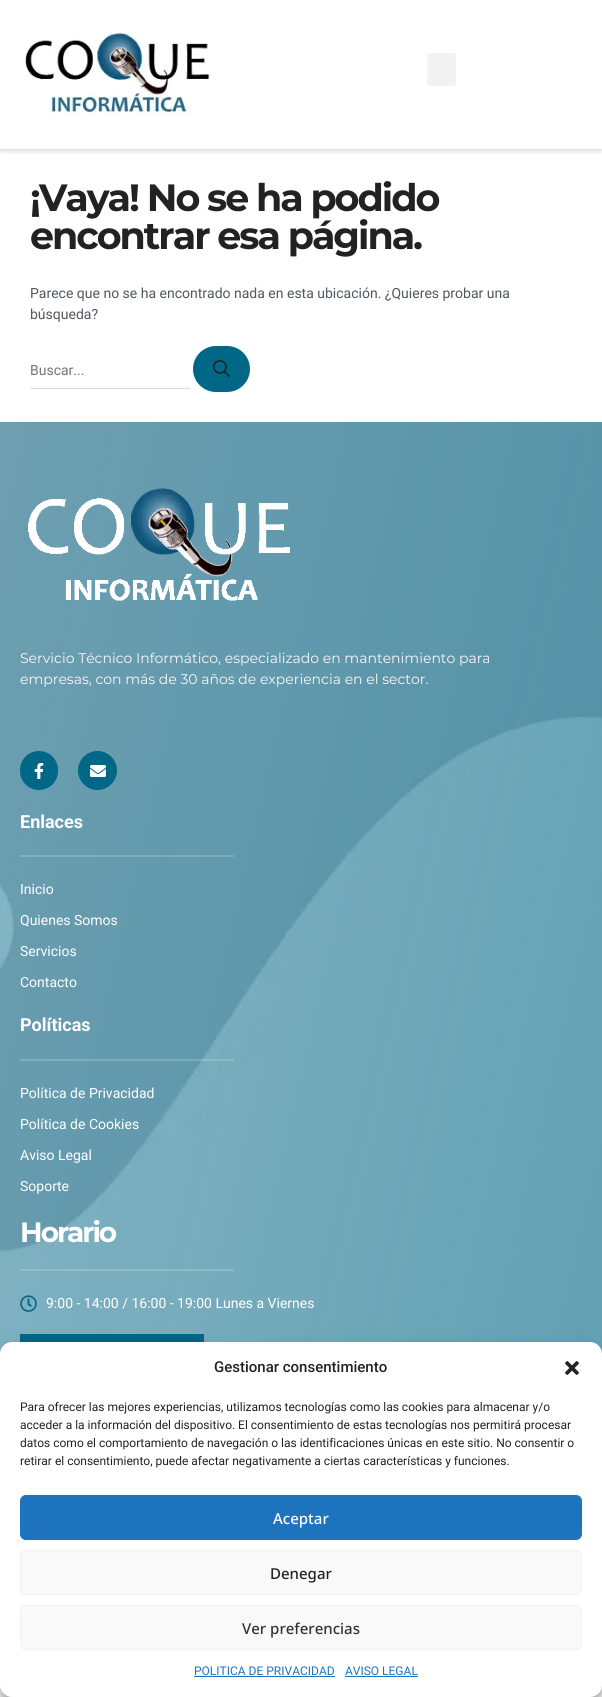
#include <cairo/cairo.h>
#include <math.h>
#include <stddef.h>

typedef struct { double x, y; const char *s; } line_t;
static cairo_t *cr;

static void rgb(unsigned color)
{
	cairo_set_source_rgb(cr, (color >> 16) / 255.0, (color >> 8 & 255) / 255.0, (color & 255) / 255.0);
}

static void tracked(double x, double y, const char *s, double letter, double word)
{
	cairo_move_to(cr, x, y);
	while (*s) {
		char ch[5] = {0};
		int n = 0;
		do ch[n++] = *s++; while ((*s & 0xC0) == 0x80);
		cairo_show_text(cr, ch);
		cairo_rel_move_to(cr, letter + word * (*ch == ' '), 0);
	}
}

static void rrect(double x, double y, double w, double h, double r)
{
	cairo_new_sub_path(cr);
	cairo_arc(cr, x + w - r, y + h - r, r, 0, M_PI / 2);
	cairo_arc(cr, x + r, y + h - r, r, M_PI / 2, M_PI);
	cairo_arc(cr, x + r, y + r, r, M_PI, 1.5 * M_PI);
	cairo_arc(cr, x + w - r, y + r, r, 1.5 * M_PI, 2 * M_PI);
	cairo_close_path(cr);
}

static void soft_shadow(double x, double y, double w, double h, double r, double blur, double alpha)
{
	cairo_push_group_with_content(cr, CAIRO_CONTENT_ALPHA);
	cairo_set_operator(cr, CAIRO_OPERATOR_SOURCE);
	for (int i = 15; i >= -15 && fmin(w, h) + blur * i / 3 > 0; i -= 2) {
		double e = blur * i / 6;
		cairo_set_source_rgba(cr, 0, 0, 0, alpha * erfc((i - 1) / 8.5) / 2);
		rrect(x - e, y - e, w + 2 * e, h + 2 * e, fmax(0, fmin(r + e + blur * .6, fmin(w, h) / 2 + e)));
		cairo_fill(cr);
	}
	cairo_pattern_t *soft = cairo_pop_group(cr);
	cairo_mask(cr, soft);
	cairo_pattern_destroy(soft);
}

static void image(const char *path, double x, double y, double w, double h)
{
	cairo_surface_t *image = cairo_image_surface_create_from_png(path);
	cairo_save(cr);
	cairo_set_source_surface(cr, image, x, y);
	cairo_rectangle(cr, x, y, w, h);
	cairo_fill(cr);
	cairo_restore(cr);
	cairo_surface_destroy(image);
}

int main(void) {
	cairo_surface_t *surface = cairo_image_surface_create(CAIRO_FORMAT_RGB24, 602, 1697);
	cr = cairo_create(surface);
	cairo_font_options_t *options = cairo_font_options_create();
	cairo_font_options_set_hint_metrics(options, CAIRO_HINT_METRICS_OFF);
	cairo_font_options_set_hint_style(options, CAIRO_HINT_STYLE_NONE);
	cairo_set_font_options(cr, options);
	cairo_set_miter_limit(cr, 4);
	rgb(0xffffff);
	cairo_paint(cr);
	cairo_save(cr);
	cairo_rectangle(cr, 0, 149, 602, 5);
	cairo_clip(cr);
	rgb(0x000000);
	soft_shadow(0, 2, 602, 149, 0, 2.5, 0.15);
	cairo_restore(cr);
	image("img/1.png", 25, 32, 185, 84);
	rgb(0xf2f2f2);
	rrect(427, 53, 29, 33, 3);
	cairo_fill(cr);
	rgb(0xdcdcde);
	cairo_rectangle(cr, 30, 388, 160, 1);
	cairo_fill(cr);
	rgb(0x006787);
	rrect(193, 346, 57, 46, 23);
	cairo_fill(cr);
	image("img/2.png", 213, 360, 17, 17);
	image("img/3.png", 0, 422, 602, 932);
	image("img/4.png", 28, 488, 262, 113);
	rrect(20, 751, 38, 39, 19);
	cairo_fill(cr);
	image("img/5.png", 34, 763, 10, 16);
	cairo_arc(cr, 97.5, 770.5, 19.5, 0, 2 * M_PI);
	cairo_fill(cr);
	image("img/6.png", 90, 765, 16, 12);
	cairo_set_source_rgba(cr, 1, 1, 1, 0.17);
	cairo_rectangle(cr, 20, 855, 214, 2);
	cairo_fill(cr);
	cairo_rectangle(cr, 20, 1059, 214, 2);
	cairo_fill(cr);
	cairo_rectangle(cr, 20, 1269, 214, 2);
	cairo_fill(cr);
	image("img/7.png", 20, 1295, 17, 17);
	rgb(0x006787);
	cairo_rectangle(cr, 20, 1334, 184, 8);
	cairo_fill(cr);
	rgb(0x000000);
	soft_shadow(0, 1348, 602, 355, 12, 3, 0.23);
	soft_shadow(0, 1352, 602, 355, 12, 10, 0.19);
	rgb(0xffffff);
	rrect(0, 1342, 602, 355, 12);
	cairo_fill(cr);
	image("img/8.png", 565, 1361, 14, 14);
	rgb(0x1e73be);
	rrect(20.5, 1495.5, 561, 44, 5.5);
	cairo_fill_preserve(cr);
	cairo_set_line_width(cr, 1);
	cairo_stroke(cr);
	rgb(0xf9f9f9);
	rrect(20.5, 1550.5, 561, 44, 5.5);
	cairo_fill_preserve(cr);
	rgb(0xf2f2f2);
	cairo_stroke(cr);
	rgb(0xf9f9f9);
	rrect(20.5, 1605.5, 561, 44, 5.5);
	cairo_fill_preserve(cr);
	rgb(0xf2f2f2);
	cairo_stroke(cr);
	rgb(0x1e73be);
	cairo_rectangle(cr, 194, 1676, 141, 1);
	cairo_fill(cr);
	cairo_rectangle(cr, 345, 1676, 73, 1);
	cairo_fill(cr);
	cairo_select_font_face(cr, "Montserrat", CAIRO_FONT_SLANT_NORMAL, CAIRO_FONT_WEIGHT_BOLD);
	cairo_set_font_size(cr, 38);
	rgb(0x222222);
	tracked(30, 211, "¡Vaya! No se ha podido", -2, 0);
	tracked(30, 249, "encontrar esa página.", -2, 0);
	cairo_select_font_face(cr, "Roboto", CAIRO_FONT_SLANT_NORMAL, CAIRO_FONT_WEIGHT_NORMAL);
	cairo_set_font_size(cr, 14);
	rgb(0x50575e);
	cairo_move_to(cr, 30, 298);
	cairo_show_text(cr, "Parece que no se ha encontrado nada en esta ubicación. ¿Quieres probar una");
	cairo_move_to(cr, 30, 319);
	cairo_show_text(cr, "búsqueda?");
	rgb(0x757575);
	cairo_move_to(cr, 30, 375);
	cairo_show_text(cr, "Buscar...");
	cairo_select_font_face(cr, "Montserrat", CAIRO_FONT_SLANT_NORMAL, CAIRO_FONT_WEIGHT_NORMAL);
	rgb(0xf7f7f7);
	cairo_move_to(cr, 20, 663);
	cairo_show_text(cr, "Servicio Técnico Informático, especializado en mantenimiento para");
	cairo_move_to(cr, 20, 684);
	cairo_show_text(cr, "empresas, con más de 30 años de experiencia en el sector.");
	cairo_select_font_face(cr, "Roboto", CAIRO_FONT_SLANT_NORMAL, CAIRO_FONT_WEIGHT_BOLD);
	cairo_set_font_size(cr, 18);
	rgb(0xffffff);
	cairo_move_to(cr, 20, 828);
	cairo_show_text(cr, "Enlaces");
	cairo_select_font_face(cr, "Roboto", CAIRO_FONT_SLANT_NORMAL, CAIRO_FONT_WEIGHT_NORMAL);
	cairo_set_font_size(cr, 14);
	{
		static const line_t items[] = {
			{20, 894, "Inicio"},
			{20, 925, "Quienes Somos"},
			{20, 956, "Servicios"},
			{20, 987, "Contacto"},
		};
		for (size_t i = 0; i < sizeof items / sizeof *items; i++) {
			cairo_move_to(cr, items[i].x, items[i].y);
			cairo_show_text(cr, items[i].s);
		}
	}
	cairo_select_font_face(cr, "Roboto", CAIRO_FONT_SLANT_NORMAL, CAIRO_FONT_WEIGHT_BOLD);
	cairo_set_font_size(cr, 18);
	cairo_move_to(cr, 20, 1031);
	cairo_show_text(cr, "Políticas");
	cairo_select_font_face(cr, "Roboto", CAIRO_FONT_SLANT_NORMAL, CAIRO_FONT_WEIGHT_NORMAL);
	cairo_set_font_size(cr, 14);
	{
		static const line_t items[] = {
			{20, 1098, "Política de Privacidad"},
			{20, 1129, "Política de Cookies"},
			{20, 1160, "Aviso Legal"},
			{20, 1191, "Soporte"},
		};
		for (size_t i = 0; i < sizeof items / sizeof *items; i++) {
			cairo_move_to(cr, items[i].x, items[i].y);
			cairo_show_text(cr, items[i].s);
		}
	}
	cairo_select_font_face(cr, "Montserrat", CAIRO_FONT_SLANT_NORMAL, CAIRO_FONT_WEIGHT_BOLD);
	cairo_set_font_size(cr, 28);
	tracked(20, 1242, "Horario", -2, 0);
	cairo_select_font_face(cr, "Roboto", CAIRO_FONT_SLANT_NORMAL, CAIRO_FONT_WEIGHT_NORMAL);
	cairo_set_font_size(cr, 14);
	cairo_move_to(cr, 46, 1308);
	cairo_show_text(cr, "9:00 - 14:00 / 16:00 - 19:00 Lunes a Viernes");
	cairo_select_font_face(cr, "Roboto Medium", CAIRO_FONT_SLANT_NORMAL, CAIRO_FONT_WEIGHT_NORMAL);
	cairo_set_font_size(cr, 15);
	rgb(0x222222);
	cairo_move_to(cr, 214, 1372);
	cairo_show_text(cr, "Gestionar consentimiento");
	cairo_select_font_face(cr, "Roboto", CAIRO_FONT_SLANT_NORMAL, CAIRO_FONT_WEIGHT_NORMAL);
	cairo_set_font_size(cr, 12);
	{
		static const line_t items[] = {
			{20, 1411, "Para ofrecer las mejores experiencias, utilizamos tecnologías como las cookies para almacenar y/o"},
			{20, 1429, "acceder a la información del dispositivo. El consentimiento de estas tecnologías nos permitirá procesar"},
			{20, 1447, "datos como el comportamiento de navegación o las identificaciones únicas en este sitio. No consentir o"},
			{20, 1465, "retirar el consentimiento, puede afectar negativamente a ciertas características y funciones."},
		};
		for (size_t i = 0; i < sizeof items / sizeof *items; i++) {
			cairo_move_to(cr, items[i].x, items[i].y);
			cairo_show_text(cr, items[i].s);
		}
	}
	cairo_select_font_face(cr, "Noto Sans Medium", CAIRO_FONT_SLANT_NORMAL, CAIRO_FONT_WEIGHT_NORMAL);
	cairo_set_font_size(cr, 15);
	rgb(0xffffff);
	cairo_move_to(cr, 273, 1524);
	cairo_show_text(cr, "Aceptar");
	rgb(0x222222);
	cairo_move_to(cr, 270, 1579);
	cairo_show_text(cr, "Denegar");
	rgb(0x333333);
	cairo_move_to(cr, 242, 1634);
	cairo_show_text(cr, "Ver preferencias");
	cairo_select_font_face(cr, "Roboto", CAIRO_FONT_SLANT_NORMAL, CAIRO_FONT_WEIGHT_NORMAL);
	cairo_set_font_size(cr, 12);
	rgb(0x1e73be);
	cairo_move_to(cr, 194, 1675);
	cairo_show_text(cr, "POLITICA DE PRIVACIDAD");
	cairo_move_to(cr, 345, 1675);
	cairo_show_text(cr, "AVISO LEGAL");
	cairo_surface_write_to_png(surface, "page.png");
	cairo_font_options_destroy(options);
	cairo_destroy(cr);
	cairo_surface_destroy(surface);
	return 0;
}
